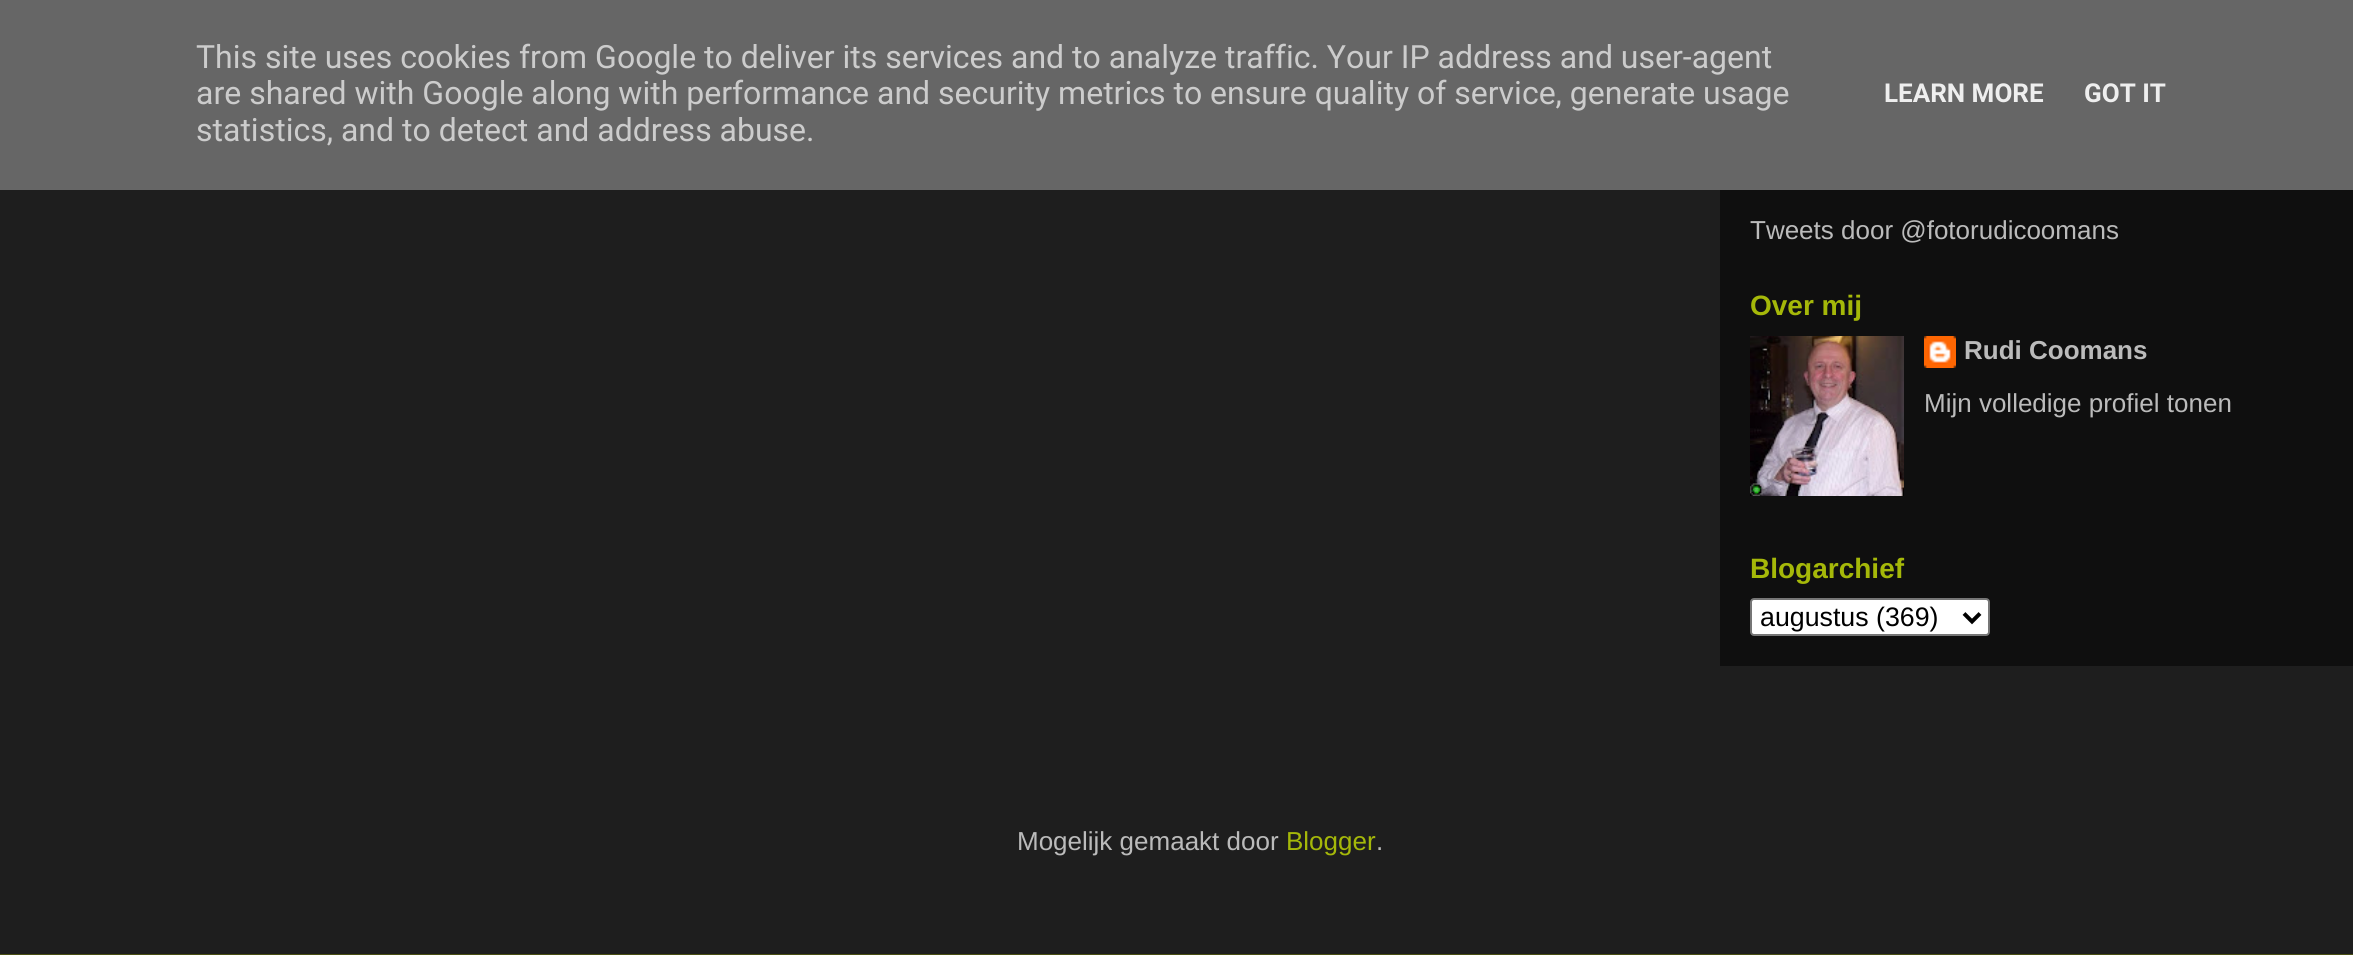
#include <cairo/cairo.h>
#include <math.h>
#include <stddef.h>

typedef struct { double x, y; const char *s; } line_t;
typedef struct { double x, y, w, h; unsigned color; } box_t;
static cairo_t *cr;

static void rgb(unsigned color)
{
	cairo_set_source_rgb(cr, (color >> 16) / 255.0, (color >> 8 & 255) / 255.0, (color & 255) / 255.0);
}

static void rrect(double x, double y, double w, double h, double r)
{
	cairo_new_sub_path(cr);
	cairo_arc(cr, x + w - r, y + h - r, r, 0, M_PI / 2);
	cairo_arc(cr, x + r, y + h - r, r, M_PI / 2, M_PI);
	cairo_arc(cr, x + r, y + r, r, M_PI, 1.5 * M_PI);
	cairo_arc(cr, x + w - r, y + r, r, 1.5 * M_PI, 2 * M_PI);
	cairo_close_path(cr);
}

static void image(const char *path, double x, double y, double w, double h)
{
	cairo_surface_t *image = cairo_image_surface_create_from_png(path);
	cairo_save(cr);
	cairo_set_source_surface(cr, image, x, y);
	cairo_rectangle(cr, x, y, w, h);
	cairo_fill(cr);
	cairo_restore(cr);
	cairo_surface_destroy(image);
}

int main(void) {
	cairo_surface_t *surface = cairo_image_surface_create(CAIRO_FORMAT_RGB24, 2353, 955);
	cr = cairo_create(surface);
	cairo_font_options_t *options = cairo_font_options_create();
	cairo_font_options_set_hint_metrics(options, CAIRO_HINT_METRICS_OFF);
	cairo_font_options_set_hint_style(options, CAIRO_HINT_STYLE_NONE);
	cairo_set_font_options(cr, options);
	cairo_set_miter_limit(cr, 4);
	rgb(0x494e13);
	cairo_paint(cr);
	{
		static const box_t items[] = {
			{0, 0, 2353, 190, 0x666666},
			{0, 190, 2353, 764, 0x1e1e1e},
			{1720, 190, 633, 476, 0x0f0f0f},
		};
		for (size_t i = 0; i < sizeof items / sizeof *items; i++) {
			rgb(items[i].color);
			cairo_rectangle(cr, items[i].x, items[i].y, items[i].w, items[i].h);
			cairo_fill(cr);
		}
	}
	image("img/1.png", 1750, 336, 154, 160);
	image("img/2.png", 1924, 336, 32, 32);
	rgb(0xffffff);
	rrect(1751, 599, 238, 36, 3);
	cairo_fill_preserve(cr);
	rgb(0x767676);
	cairo_stroke(cr);
	cairo_new_path(cr);
	cairo_move_to(cr, 1964, 613.5);
	cairo_line_to(cr, 1972, 621.5);
	cairo_line_to(cr, 1980, 613.5);
	rgb(0x000000);
	cairo_set_line_width(cr, 4);
	cairo_stroke(cr);
	cairo_select_font_face(cr, "Roboto", CAIRO_FONT_SLANT_NORMAL, CAIRO_FONT_WEIGHT_NORMAL);
	cairo_set_font_size(cr, 32);
	rgb(0xcccccc);
	{
		static const line_t items[] = {
			{196, 68, "This site uses cookies from Google to deliver its services and to analyze traffic. Your IP address and user-agent"},
			{196, 104, "are shared with Google along with performance and security metrics to ensure quality of service, generate usage"},
			{196, 141, "statistics, and to detect and address abuse."},
		};
		for (size_t i = 0; i < sizeof items / sizeof *items; i++) {
			cairo_move_to(cr, items[i].x, items[i].y);
			cairo_show_text(cr, items[i].s);
		}
	}
	cairo_select_font_face(cr, "Roboto", CAIRO_FONT_SLANT_NORMAL, CAIRO_FONT_WEIGHT_BOLD);
	cairo_set_font_size(cr, 26);
	rgb(0xeeeeee);
	cairo_move_to(cr, 1884, 102);
	cairo_show_text(cr, "LEARN MORE");
	cairo_move_to(cr, 2084, 102);
	cairo_show_text(cr, "GOT IT");
	cairo_select_font_face(cr, "Liberation Sans", CAIRO_FONT_SLANT_NORMAL, CAIRO_FONT_WEIGHT_NORMAL);
	rgb(0xbbbbbb);
	cairo_move_to(cr, 1750, 239);
	cairo_show_text(cr, "Tweets door @fotorudicoomans");
	cairo_select_font_face(cr, "Liberation Sans", CAIRO_FONT_SLANT_NORMAL, CAIRO_FONT_WEIGHT_BOLD);
	cairo_set_font_size(cr, 28);
	rgb(0xa5b809);
	cairo_move_to(cr, 1750, 315);
	cairo_show_text(cr, "Over mij");
	cairo_set_font_size(cr, 26);
	rgb(0xbbbbbb);
	cairo_move_to(cr, 1964, 359);
	cairo_show_text(cr, "Rudi Coomans");
	cairo_select_font_face(cr, "Liberation Sans", CAIRO_FONT_SLANT_NORMAL, CAIRO_FONT_WEIGHT_NORMAL);
	cairo_move_to(cr, 1924, 412);
	cairo_show_text(cr, "Mijn volledige profiel tonen");
	cairo_select_font_face(cr, "Liberation Sans", CAIRO_FONT_SLANT_NORMAL, CAIRO_FONT_WEIGHT_BOLD);
	cairo_set_font_size(cr, 28);
	rgb(0xa5b809);
	cairo_move_to(cr, 1750, 578);
	cairo_show_text(cr, "Blogarchief");
	cairo_select_font_face(cr, "Liberation Sans", CAIRO_FONT_SLANT_NORMAL, CAIRO_FONT_WEIGHT_NORMAL);
	cairo_set_font_size(cr, 26.75);
	rgb(0x000000);
	cairo_move_to(cr, 1760, 626);
	cairo_show_text(cr, "augustus (369)");
	cairo_set_font_size(cr, 26);
	rgb(0xbbbbbb);
	cairo_move_to(cr, 1017, 850);
	cairo_show_text(cr, "Mogelijk gemaakt door");
	rgb(0xa5b809);
	cairo_move_to(cr, 1286, 850);
	cairo_show_text(cr, "Blogger");
	rgb(0xbbbbbb);
	cairo_move_to(cr, 1376, 850);
	cairo_show_text(cr, ".");
	cairo_surface_write_to_png(surface, "page.png");
	cairo_font_options_destroy(options);
	cairo_destroy(cr);
	cairo_surface_destroy(surface);
	return 0;
}
